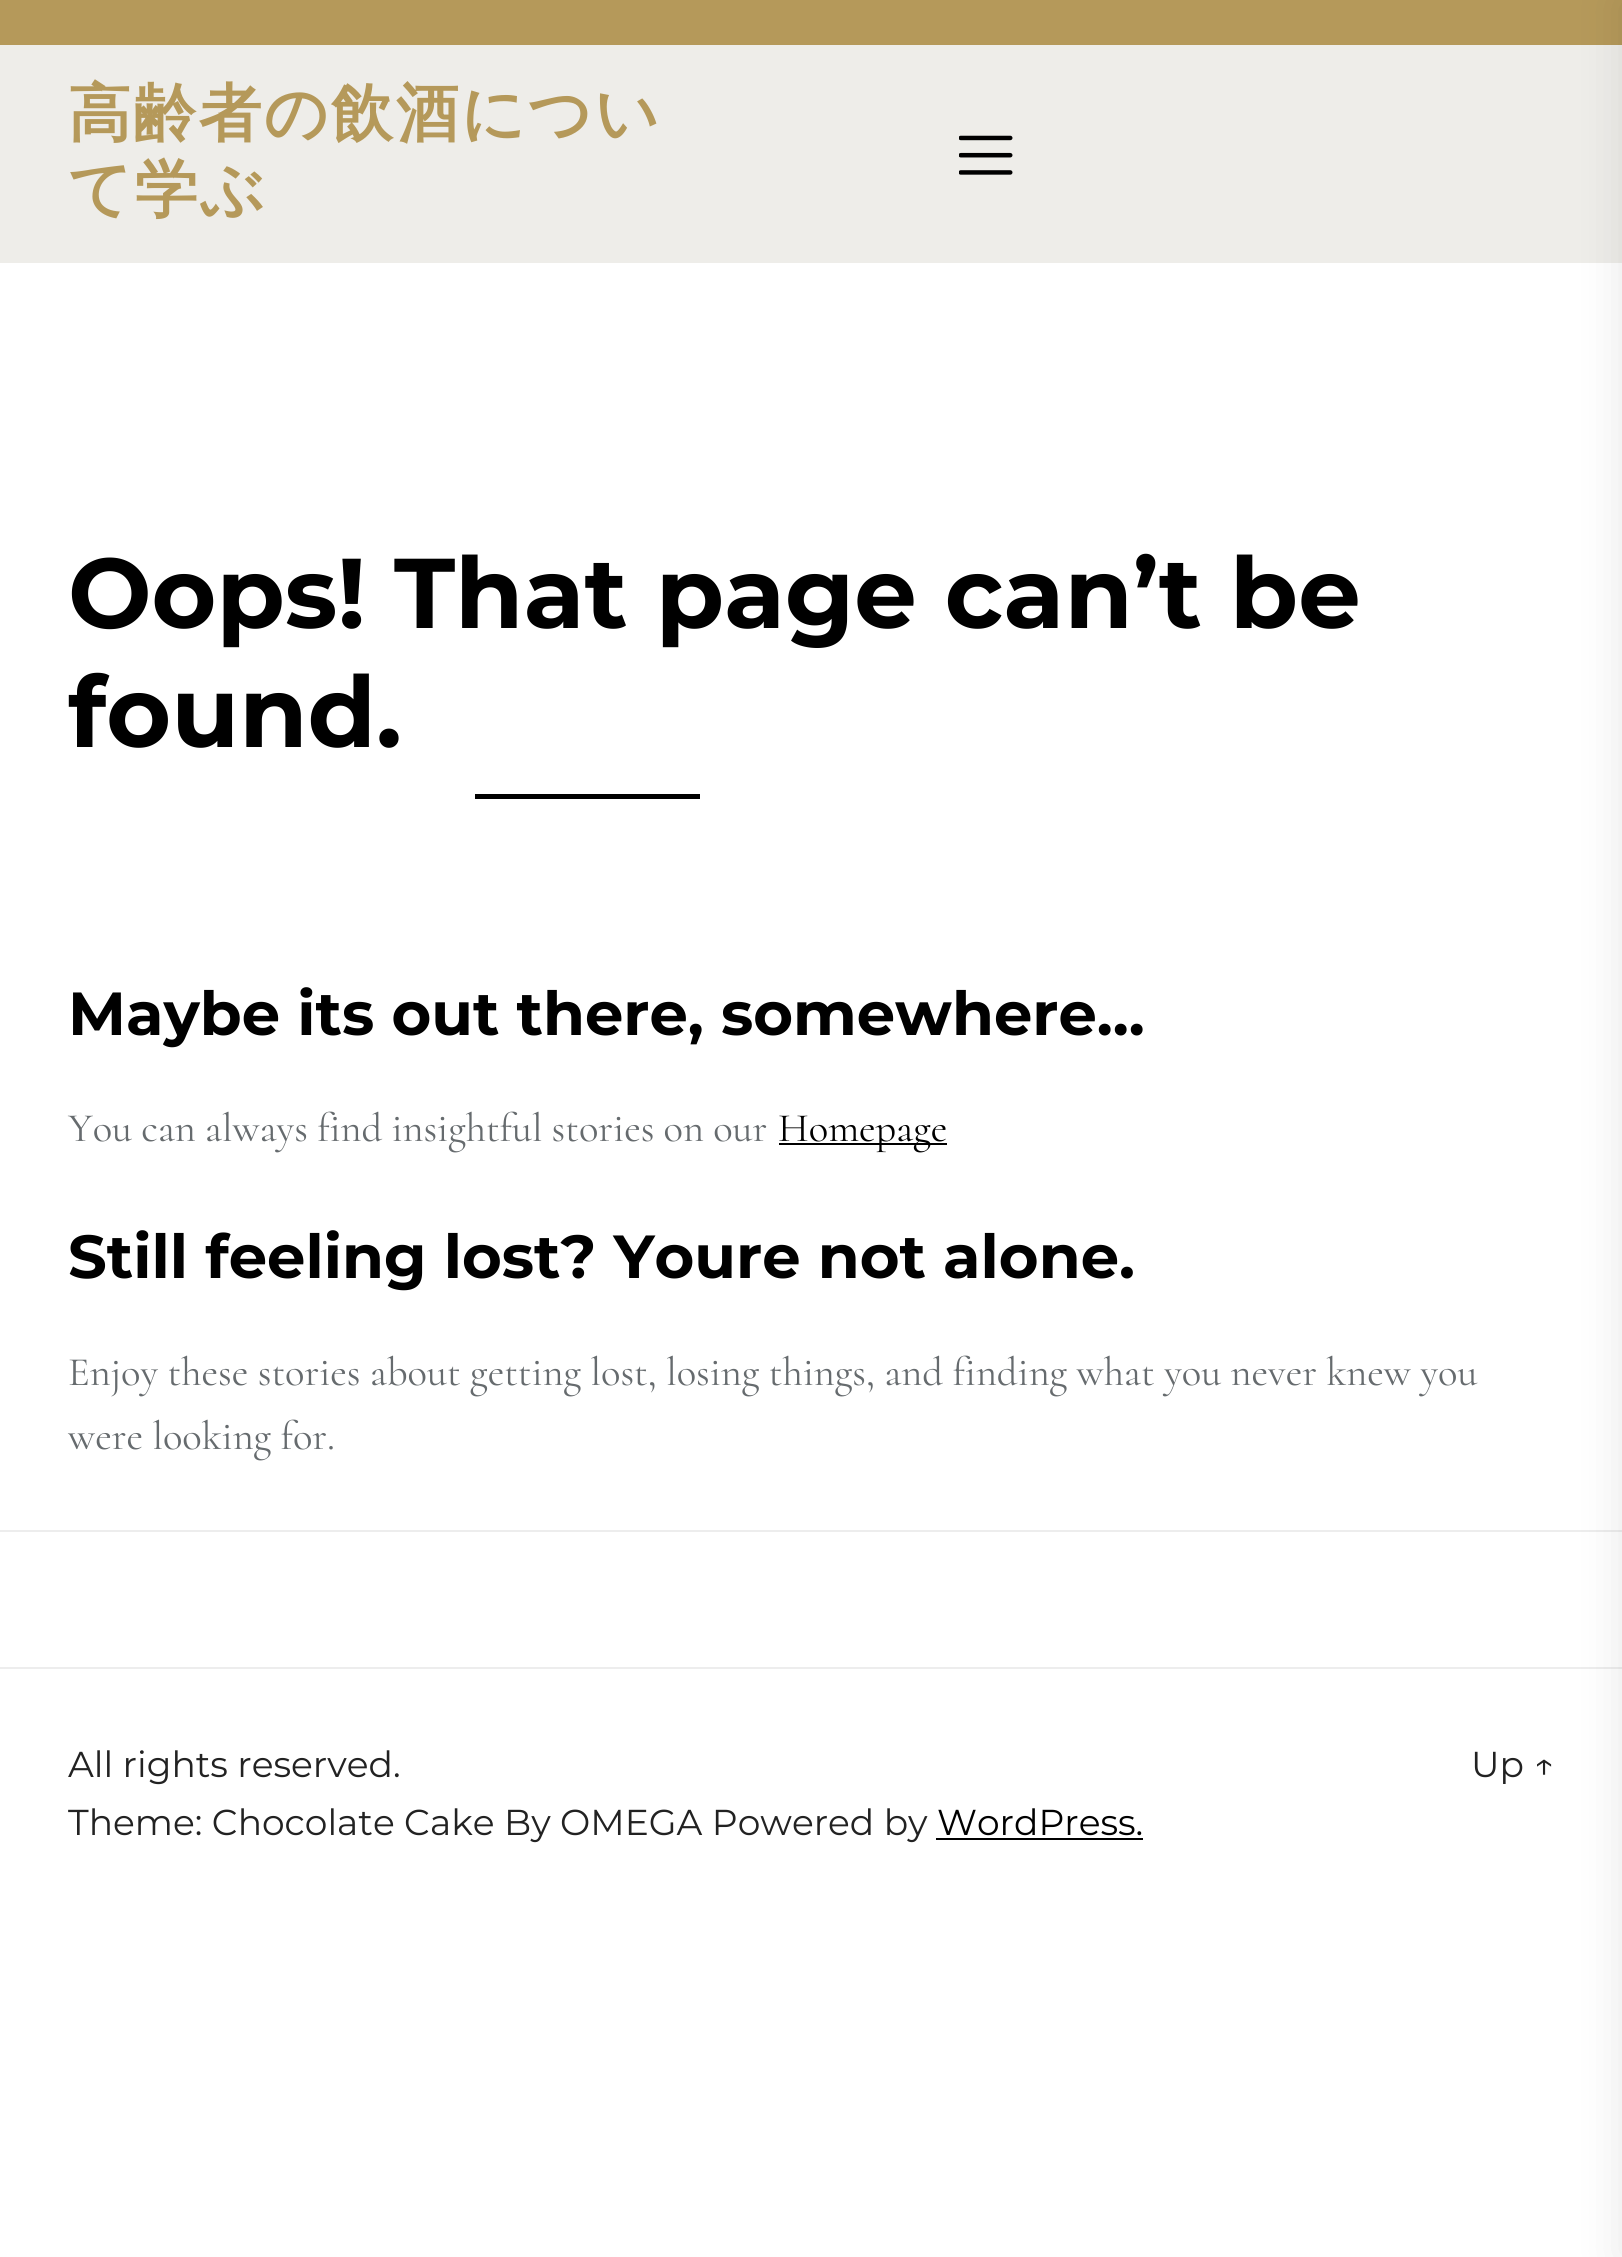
#include <cairo/cairo.h>
#include <math.h>
#include <stddef.h>

typedef struct { double x, y, w, h; unsigned color; } box_t;
static cairo_t *cr;

static void rgb(unsigned color)
{
	cairo_set_source_rgb(cr, (color >> 16) / 255.0, (color >> 8 & 255) / 255.0, (color & 255) / 255.0);
}

static void tracked(double x, double y, const char *s, double letter, double word)
{
	cairo_move_to(cr, x, y);
	while (*s) {
		char ch[5] = {0};
		int n = 0;
		do ch[n++] = *s++; while ((*s & 0xC0) == 0x80);
		cairo_show_text(cr, ch);
		cairo_rel_move_to(cr, letter + word * (*ch == ' '), 0);
	}
}

static void rrect(double x, double y, double w, double h, double r)
{
	cairo_new_sub_path(cr);
	cairo_arc(cr, x + w - r, y + h - r, r, 0, M_PI / 2);
	cairo_arc(cr, x + r, y + h - r, r, M_PI / 2, M_PI);
	cairo_arc(cr, x + r, y + r, r, M_PI, 1.5 * M_PI);
	cairo_arc(cr, x + w - r, y + r, r, 1.5 * M_PI, 2 * M_PI);
	cairo_close_path(cr);
}

static void soft_shadow(double x, double y, double w, double h, double r, double blur, double alpha)
{
	cairo_push_group_with_content(cr, CAIRO_CONTENT_ALPHA);
	cairo_set_operator(cr, CAIRO_OPERATOR_SOURCE);
	for (int i = 15; i >= -15 && fmin(w, h) + blur * i / 3 > 0; i -= 2) {
		double e = blur * i / 6;
		cairo_set_source_rgba(cr, 0, 0, 0, alpha * erfc((i - 1) / 8.5) / 2);
		rrect(x - e, y - e, w + 2 * e, h + 2 * e, fmax(0, fmin(r + e + blur * .6, fmin(w, h) / 2 + e)));
		cairo_fill(cr);
	}
	cairo_pattern_t *soft = cairo_pop_group(cr);
	cairo_mask(cr, soft);
	cairo_pattern_destroy(soft);
}

static void image(const char *path, double x, double y, double w, double h)
{
	cairo_surface_t *image = cairo_image_surface_create_from_png(path);
	cairo_save(cr);
	cairo_set_source_surface(cr, image, x, y);
	cairo_rectangle(cr, x, y, w, h);
	cairo_fill(cr);
	cairo_restore(cr);
	cairo_surface_destroy(image);
}

int main(void) {
	cairo_surface_t *surface = cairo_image_surface_create(CAIRO_FORMAT_RGB24, 1622, 2257);
	cr = cairo_create(surface);
	cairo_font_options_t *options = cairo_font_options_create();
	cairo_font_options_set_hint_metrics(options, CAIRO_HINT_METRICS_OFF);
	cairo_font_options_set_hint_style(options, CAIRO_HINT_STYLE_NONE);
	cairo_set_font_options(cr, options);
	cairo_set_miter_limit(cr, 4);
	rgb(0xffffff);
	cairo_paint(cr);
	rgb(0xeeede9);
	cairo_rectangle(cr, 0, 45, 1622, 218);
	cairo_fill(cr);
	rgb(0xb5995a);
	cairo_rectangle(cr, 0, 0, 1622, 45);
	cairo_fill(cr);
	image("img/1.png", 959, 135, 54, 40);
	{
		static const box_t items[] = {
			{475, 794, 225, 5, 0x000000},
			{779, 1143, 168, 2, 0x000000},
			{0, 1530, 1622, 2, 0xededed},
			{0, 1667, 1622, 2, 0xededed},
		};
		for (size_t i = 0; i < sizeof items / sizeof *items; i++) {
			rgb(items[i].color);
			cairo_rectangle(cr, items[i].x, items[i].y, items[i].w, items[i].h);
			cairo_fill(cr);
		}
	}
	rgb(0x000000);
	soft_shadow(1622, 0, 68, 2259, 0, 22.5, 0.1);
	rgb(0x000000);
	cairo_rectangle(cr, 936, 1838, 207, 2);
	cairo_fill(cr);
	cairo_select_font_face(cr, "WenQuanYi Zen Hei", CAIRO_FONT_SLANT_NORMAL, CAIRO_FONT_WEIGHT_BOLD);
	cairo_set_font_size(cr, 63);
	rgb(0xb5995a);
	tracked(68, 135, "高齢者の飲酒につい", 2.25, 0);
	tracked(68, 211, "て学ぶ", 2.25, 0);
	cairo_select_font_face(cr, "Montserrat", CAIRO_FONT_SLANT_NORMAL, CAIRO_FONT_WEIGHT_BOLD);
	cairo_set_font_size(cr, 99);
	rgb(0x000000);
	cairo_move_to(cr, 68, 628);
	cairo_show_text(cr, "Oops! That page can’t be");
	cairo_move_to(cr, 68, 747);
	cairo_show_text(cr, "found.");
	cairo_set_font_size(cr, 60.75);
	cairo_move_to(cr, 68, 1035);
	cairo_show_text(cr, "Maybe its out there, somewhere...");
	cairo_select_font_face(cr, "Cormorant", CAIRO_FONT_SLANT_NORMAL, CAIRO_FONT_WEIGHT_NORMAL);
	cairo_set_font_size(cr, 40.5);
	rgb(0x666b6e);
	tracked(68, 1141, "You can always find insightful stories on our", 0, -0.25);
	rgb(0x000000);
	cairo_move_to(cr, 778, 1141);
	cairo_show_text(cr, "Homepage");
	cairo_select_font_face(cr, "Montserrat", CAIRO_FONT_SLANT_NORMAL, CAIRO_FONT_WEIGHT_BOLD);
	cairo_set_font_size(cr, 60.75);
	cairo_move_to(cr, 68, 1278);
	cairo_show_text(cr, "Still feeling lost? Youre not alone.");
	cairo_select_font_face(cr, "Cormorant", CAIRO_FONT_SLANT_NORMAL, CAIRO_FONT_WEIGHT_NORMAL);
	cairo_set_font_size(cr, 40.5);
	rgb(0x666b6e);
	cairo_move_to(cr, 68, 1385);
	cairo_show_text(cr, "Enjoy these stories about getting lost, losing things, and finding what you never knew you");
	cairo_move_to(cr, 68, 1449);
	cairo_show_text(cr, "were looking for.");
	cairo_select_font_face(cr, "Montserrat", CAIRO_FONT_SLANT_NORMAL, CAIRO_FONT_WEIGHT_NORMAL);
	cairo_set_font_size(cr, 36);
	rgb(0x222222);
	cairo_move_to(cr, 68, 1777);
	cairo_show_text(cr, "All rights reserved.");
	cairo_move_to(cr, 68, 1835);
	cairo_show_text(cr, "Theme: Chocolate Cake By OMEGA Powered by");
	rgb(0x000000);
	cairo_move_to(cr, 937, 1835);
	cairo_show_text(cr, "WordPress.");
	rgb(0x222222);
	cairo_move_to(cr, 1471, 1777);
	cairo_show_text(cr, "Up ↑");
	cairo_surface_write_to_png(surface, "page.png");
	cairo_font_options_destroy(options);
	cairo_destroy(cr);
	cairo_surface_destroy(surface);
	return 0;
}
